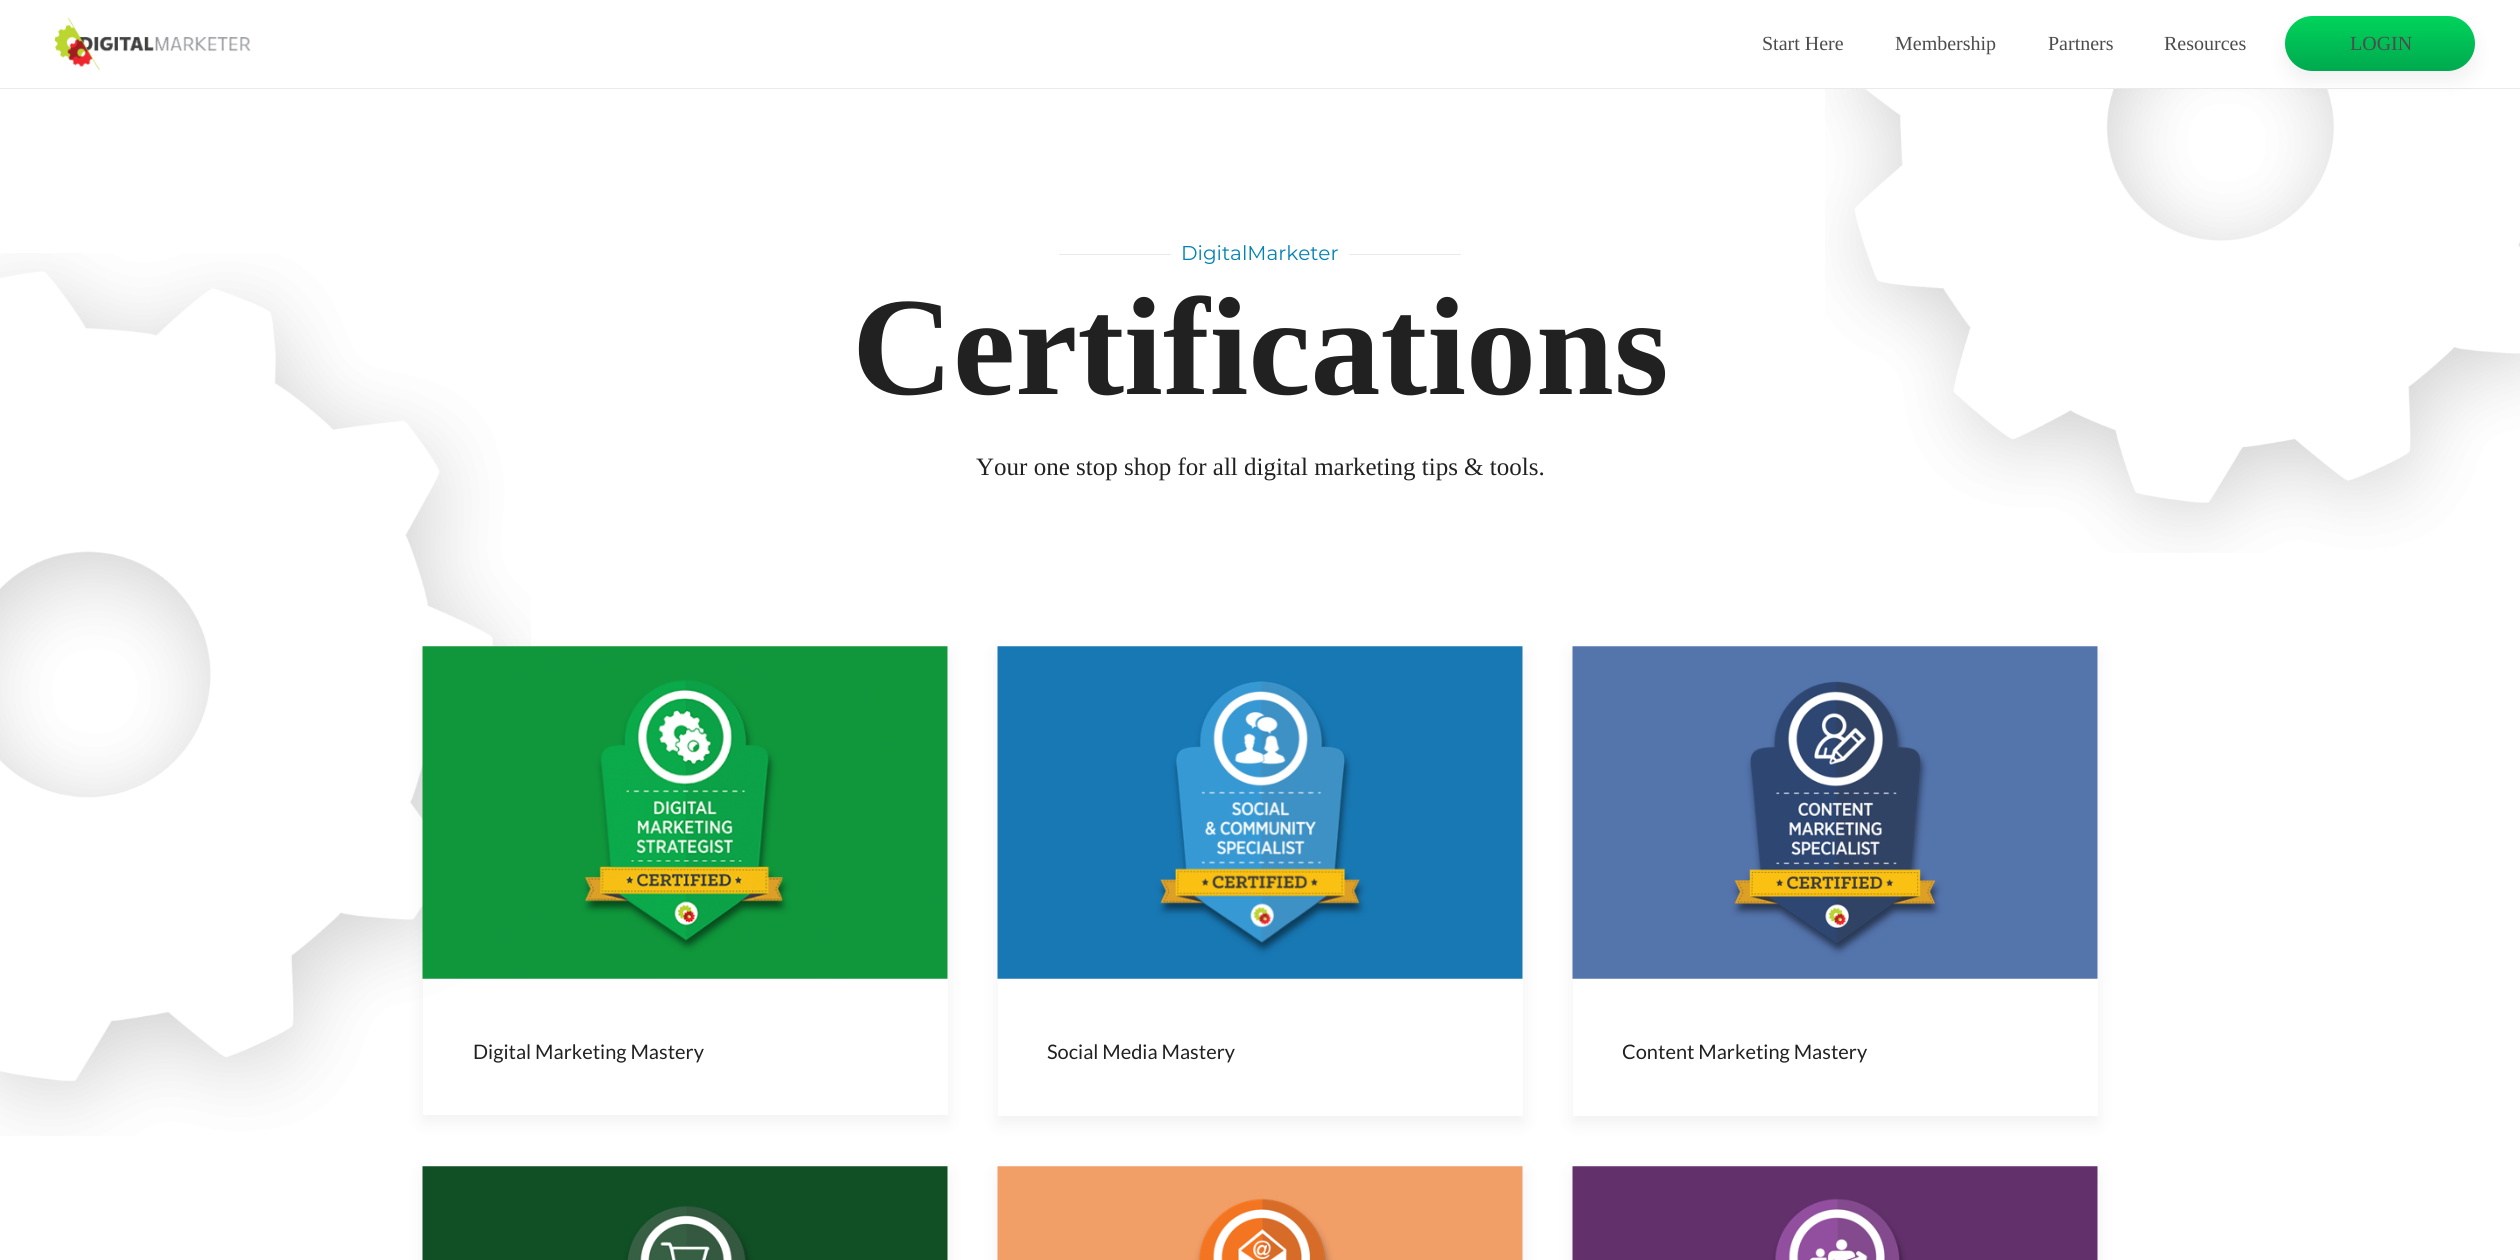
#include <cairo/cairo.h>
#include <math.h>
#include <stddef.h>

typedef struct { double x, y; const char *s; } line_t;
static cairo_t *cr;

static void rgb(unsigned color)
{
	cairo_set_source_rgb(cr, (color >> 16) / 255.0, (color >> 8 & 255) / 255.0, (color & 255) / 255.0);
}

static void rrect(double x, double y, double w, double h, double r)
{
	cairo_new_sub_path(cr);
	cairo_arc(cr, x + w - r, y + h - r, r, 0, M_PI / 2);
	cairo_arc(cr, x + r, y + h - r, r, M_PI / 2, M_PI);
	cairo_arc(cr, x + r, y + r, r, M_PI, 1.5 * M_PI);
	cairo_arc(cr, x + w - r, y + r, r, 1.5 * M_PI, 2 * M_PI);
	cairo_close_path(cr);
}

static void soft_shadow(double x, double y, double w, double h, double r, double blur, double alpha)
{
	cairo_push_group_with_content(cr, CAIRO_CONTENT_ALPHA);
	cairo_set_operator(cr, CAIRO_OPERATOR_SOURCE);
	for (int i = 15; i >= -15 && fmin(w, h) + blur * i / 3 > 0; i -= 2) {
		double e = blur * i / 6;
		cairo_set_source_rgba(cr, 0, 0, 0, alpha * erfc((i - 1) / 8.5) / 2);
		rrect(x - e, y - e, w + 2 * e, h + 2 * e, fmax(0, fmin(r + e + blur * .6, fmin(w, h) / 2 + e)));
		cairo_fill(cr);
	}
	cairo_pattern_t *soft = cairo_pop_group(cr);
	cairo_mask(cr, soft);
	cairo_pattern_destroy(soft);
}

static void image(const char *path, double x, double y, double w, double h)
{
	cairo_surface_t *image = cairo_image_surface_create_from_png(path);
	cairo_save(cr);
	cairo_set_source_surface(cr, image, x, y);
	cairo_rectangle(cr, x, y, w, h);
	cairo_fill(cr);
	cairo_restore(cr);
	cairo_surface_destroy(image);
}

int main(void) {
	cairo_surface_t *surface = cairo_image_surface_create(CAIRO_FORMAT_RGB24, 2520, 1260);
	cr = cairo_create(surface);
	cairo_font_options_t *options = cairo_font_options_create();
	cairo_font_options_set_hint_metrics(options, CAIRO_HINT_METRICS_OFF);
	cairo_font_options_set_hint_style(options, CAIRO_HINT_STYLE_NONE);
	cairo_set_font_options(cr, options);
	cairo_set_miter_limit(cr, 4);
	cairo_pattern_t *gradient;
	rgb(0xffffff);
	cairo_paint(cr);
	rgb(0xeaeaea);
	cairo_rectangle(cr, 0, 88, 2520, 1);
	cairo_fill(cr);
	image("img/1.png", 54, 17, 197, 54);
	image("img/3.png", 1825, 89, 695, 464);
	rgb(0x000000);
	soft_shadow(2285, 26, 190, 55, 27.5, 10, 0.06);
	gradient = cairo_pattern_create_linear(2380, 16, 2380, 71);
	cairo_pattern_add_color_stop_rgba(gradient, 0, 0, 0.831, 0.357, 1);
	cairo_pattern_add_color_stop_rgba(gradient, 1, 0, 0.663, 0.31, 1);
	cairo_set_source(cr, gradient);
	cairo_pattern_destroy(gradient);
	rrect(2285, 16, 190, 55, 27.5);
	cairo_fill(cr);
	image("img/2.png", 0, 253, 531, 883);
	rgb(0xeaeaea);
	cairo_rectangle(cr, 1059, 254, 112, 1);
	cairo_fill(cr);
	cairo_rectangle(cr, 1349, 254, 112, 1);
	cairo_fill(cr);
	cairo_save(cr);
	cairo_set_fill_rule(cr, CAIRO_FILL_RULE_EVEN_ODD);
	cairo_new_path(cr);
	cairo_move_to(cr, 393, 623);
	cairo_line_to(cr, 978, 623);
	cairo_line_to(cr, 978, 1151);
	cairo_line_to(cr, 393, 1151);
	cairo_close_path(cr);
	cairo_move_to(cr, 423, 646);
	cairo_line_to(cr, 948, 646);
	cairo_line_to(cr, 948, 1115);
	cairo_line_to(cr, 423, 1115);
	cairo_close_path(cr);
	cairo_clip(cr);
	rgb(0x000000);
	soft_shadow(423, 653, 525, 468, 0, 9.5, 0.06);
	cairo_restore(cr);
	image("img/4.png", 422, 646, 526, 333);
	cairo_save(cr);
	cairo_set_fill_rule(cr, CAIRO_FILL_RULE_EVEN_ODD);
	cairo_new_path(cr);
	cairo_move_to(cr, 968, 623);
	cairo_line_to(cr, 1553, 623);
	cairo_line_to(cr, 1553, 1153);
	cairo_line_to(cr, 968, 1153);
	cairo_close_path(cr);
	cairo_move_to(cr, 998, 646);
	cairo_line_to(cr, 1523, 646);
	cairo_line_to(cr, 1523, 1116);
	cairo_line_to(cr, 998, 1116);
	cairo_close_path(cr);
	cairo_clip(cr);
	rgb(0x000000);
	soft_shadow(998, 653, 525, 470, 0, 9.5, 0.06);
	cairo_restore(cr);
	image("img/5.png", 997, 646, 526, 333);
	cairo_save(cr);
	cairo_set_fill_rule(cr, CAIRO_FILL_RULE_EVEN_ODD);
	cairo_new_path(cr);
	cairo_move_to(cr, 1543, 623);
	cairo_line_to(cr, 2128, 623);
	cairo_line_to(cr, 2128, 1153);
	cairo_line_to(cr, 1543, 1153);
	cairo_close_path(cr);
	cairo_move_to(cr, 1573, 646);
	cairo_line_to(cr, 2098, 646);
	cairo_line_to(cr, 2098, 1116);
	cairo_line_to(cr, 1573, 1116);
	cairo_close_path(cr);
	cairo_clip(cr);
	rgb(0x000000);
	soft_shadow(1573, 653, 525, 470, 0, 9.5, 0.06);
	cairo_restore(cr);
	image("img/6.png", 1572, 646, 526, 333);
	rgb(0x000000);
	soft_shadow(423, 1173, 525, 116, 0, 9.5, 0.06);
	image("img/7.png", 422, 1166, 526, 94);
	soft_shadow(998, 1173, 525, 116, 0, 9.5, 0.06);
	image("img/8.png", 997, 1166, 526, 94);
	soft_shadow(1573, 1173, 525, 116, 0, 9.5, 0.06);
	image("img/9.png", 1572, 1166, 526, 94);
	cairo_select_font_face(cr, "Liberation Serif", CAIRO_FONT_SLANT_NORMAL, CAIRO_FONT_WEIGHT_NORMAL);
	cairo_set_font_size(cr, 20);
	rgb(0x4c4c4c);
	{
		static const line_t items[] = {
			{1762, 50, "Start Here"},
			{1895, 50, "Membership"},
			{2048, 50, "Partners"},
			{2164, 50, "Resources"},
			{2350, 50, "LOGIN"},
		};
		for (size_t i = 0; i < sizeof items / sizeof *items; i++) {
			cairo_move_to(cr, items[i].x, items[i].y);
			cairo_show_text(cr, items[i].s);
		}
	}
	cairo_select_font_face(cr, "Montserrat", CAIRO_FONT_SLANT_NORMAL, CAIRO_FONT_WEIGHT_NORMAL);
	rgb(0x0482b4);
	cairo_move_to(cr, 1181, 260);
	cairo_show_text(cr, "DigitalMarketer");
	cairo_select_font_face(cr, "Liberation Serif", CAIRO_FONT_SLANT_NORMAL, CAIRO_FONT_WEIGHT_BOLD);
	cairo_set_font_size(cr, 140);
	rgb(0x212121);
	cairo_move_to(cr, 852, 394);
	cairo_show_text(cr, "Certifications");
	cairo_select_font_face(cr, "Liberation Serif", CAIRO_FONT_SLANT_NORMAL, CAIRO_FONT_WEIGHT_NORMAL);
	cairo_set_font_size(cr, 25);
	cairo_move_to(cr, 976, 475);
	cairo_show_text(cr, "Your one stop shop for all digital marketing tips & tools.");
	cairo_select_font_face(cr, "Lato", CAIRO_FONT_SLANT_NORMAL, CAIRO_FONT_WEIGHT_NORMAL);
	cairo_set_font_size(cr, 20);
	{
		static const line_t items[] = {
			{473, 1059, "Digital Marketing Mastery"},
			{1047, 1059, "Social Media Mastery"},
			{1622, 1059, "Content Marketing Mastery"},
		};
		for (size_t i = 0; i < sizeof items / sizeof *items; i++) {
			cairo_move_to(cr, items[i].x, items[i].y);
			cairo_show_text(cr, items[i].s);
		}
	}
	cairo_surface_write_to_png(surface, "page.png");
	cairo_font_options_destroy(options);
	cairo_destroy(cr);
	cairo_surface_destroy(surface);
	return 0;
}
